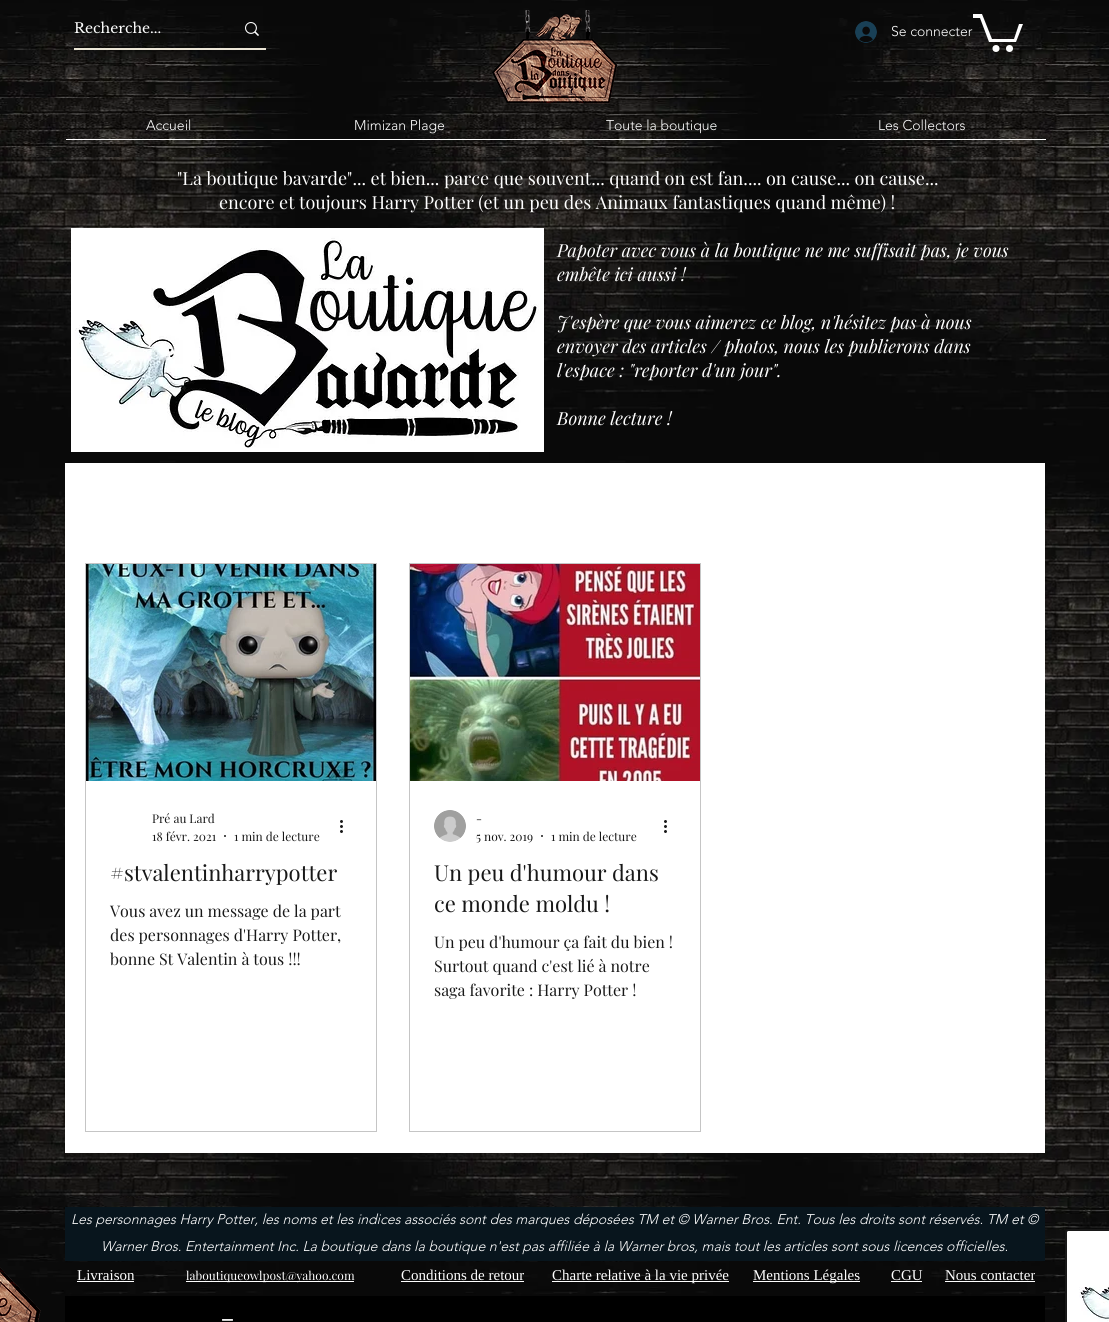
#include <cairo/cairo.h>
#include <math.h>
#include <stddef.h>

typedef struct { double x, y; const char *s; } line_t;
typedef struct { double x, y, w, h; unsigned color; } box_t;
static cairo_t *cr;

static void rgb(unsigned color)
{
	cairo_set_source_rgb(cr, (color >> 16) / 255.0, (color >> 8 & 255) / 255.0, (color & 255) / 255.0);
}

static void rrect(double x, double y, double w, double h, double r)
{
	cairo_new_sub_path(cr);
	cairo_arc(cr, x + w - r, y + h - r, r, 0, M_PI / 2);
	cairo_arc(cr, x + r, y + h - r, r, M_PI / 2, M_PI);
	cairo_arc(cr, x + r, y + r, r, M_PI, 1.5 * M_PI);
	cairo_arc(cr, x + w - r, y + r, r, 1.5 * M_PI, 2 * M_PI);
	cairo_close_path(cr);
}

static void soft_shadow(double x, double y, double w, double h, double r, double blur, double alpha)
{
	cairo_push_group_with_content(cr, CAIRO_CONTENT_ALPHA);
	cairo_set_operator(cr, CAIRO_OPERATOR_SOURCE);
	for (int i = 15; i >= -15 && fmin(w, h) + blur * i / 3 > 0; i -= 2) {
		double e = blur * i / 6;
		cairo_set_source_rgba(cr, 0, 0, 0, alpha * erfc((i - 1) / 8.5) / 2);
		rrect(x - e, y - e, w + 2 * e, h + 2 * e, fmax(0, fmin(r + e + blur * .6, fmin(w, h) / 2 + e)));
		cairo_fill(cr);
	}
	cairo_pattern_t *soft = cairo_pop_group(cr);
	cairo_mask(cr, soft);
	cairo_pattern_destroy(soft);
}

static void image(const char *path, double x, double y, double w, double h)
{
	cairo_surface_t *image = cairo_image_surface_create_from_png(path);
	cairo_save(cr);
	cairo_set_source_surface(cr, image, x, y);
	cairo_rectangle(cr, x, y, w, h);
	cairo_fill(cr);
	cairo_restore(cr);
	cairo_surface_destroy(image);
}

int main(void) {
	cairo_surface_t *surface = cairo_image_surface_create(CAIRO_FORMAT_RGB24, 1109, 1322);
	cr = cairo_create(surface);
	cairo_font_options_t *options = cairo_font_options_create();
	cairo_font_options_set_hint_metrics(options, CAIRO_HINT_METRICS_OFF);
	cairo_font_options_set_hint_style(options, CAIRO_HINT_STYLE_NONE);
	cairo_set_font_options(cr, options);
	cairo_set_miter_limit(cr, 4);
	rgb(0xffffff);
	cairo_paint(cr);
	image("img/1.png", 0, 0, 1109, 1322);
	rgb(0xebe5d6);
	cairo_rectangle(cr, 74, 48, 192, 2);
	cairo_fill(cr);
	image("img/2.png", 245, 22, 14, 14);
	image("img/3.png", 491, 10, 127, 94);
	image("img/4.png", 855, 21, 22, 22);
	rgb(0xffffff);
	cairo_new_path(cr);
	cairo_move_to(cr, 1023, 24);
	cairo_line_to(cr, 1016, 42);
	cairo_line_to(cr, 989, 42);
	cairo_line_to(cr, 980, 18);
	cairo_line_to(cr, 973, 18);
	cairo_line_to(cr, 973, 14);
	cairo_line_to(cr, 982, 14);
	cairo_line_to(cr, 992, 39);
	cairo_line_to(cr, 1014, 39);
	cairo_line_to(cr, 1019, 24);
	cairo_fill(cr);
	cairo_arc(cr, 1009.5, 48.5, 3.5, 0, 2 * M_PI);
	cairo_fill(cr);
	cairo_arc(cr, 996, 48.5, 3.5, 0, 2 * M_PI);
	cairo_fill(cr);
	cairo_set_source_rgba(cr, 1, 1, 1, 0.96);
	cairo_rectangle(cr, 66, 139, 980, 1);
	cairo_fill(cr);
	cairo_rectangle(cr, 66, 139, 207, 1);
	cairo_fill(cr);
	rgb(0xffffff);
	cairo_rectangle(cr, 273, 139, 253, 1);
	cairo_fill(cr);
	cairo_set_source_rgba(cr, 1, 1, 1, 0.96);
	cairo_rectangle(cr, 526, 139, 272, 1);
	cairo_fill(cr);
	cairo_rectangle(cr, 798, 139, 248, 1);
	cairo_fill(cr);
	image("img/5.png", 0, 157, 1109, 1039);
	image("img/6.png", 71, 228, 473, 224);
	rgb(0xffffff);
	cairo_rectangle(cr, 65, 463, 980, 690);
	cairo_fill(cr);
	cairo_rectangle(cr, 85.5, 563.5, 291, 568);
	rgb(0xc5c5c5);
	cairo_set_line_width(cr, 1);
	cairo_stroke(cr);
	image("img/7.png", 86, 564, 290, 217);
	rgb(0x181818);
	cairo_arc(cr, 225, 836, 1, 0, 2 * M_PI);
	cairo_fill(cr);
	image("img/8.png", 340, 820, 3, 13);
	cairo_rectangle(cr, 409.5, 563.5, 291, 568);
	rgb(0xc5c5c5);
	cairo_stroke(cr);
	image("img/9.png", 410, 564, 290, 217);
	image("img/10.png", 434, 810, 32, 32);
	rgb(0x181818);
	cairo_arc(cr, 542, 836, 1, 0, 2 * M_PI);
	cairo_fill(cr);
	image("img/8.png", 664, 820, 3, 13);
	rgb(0x08151d);
	cairo_rectangle(cr, 65, 1207, 980, 54);
	cairo_fill(cr);
	image("img/11.png", 0, 1267, 41, 55);
	rgb(0x000000);
	soft_shadow(1065, 1229, 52, 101, 3, 1.5, 0.5);
	rgb(0x181818);
	rrect(1066, 1230, 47, 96, 2);
	cairo_fill_preserve(cr);
	cairo_set_line_width(cr, 2);
	cairo_stroke(cr);
	image("img/12.png", 1067, 1231, 42, 91);
	{
		static const box_t items[] = {
			{77, 1281, 57, 1, 0xffffff},
			{186, 1281, 168, 1, 0xffffff},
			{401, 1281, 123, 1, 0xffffff},
			{552, 1281, 177, 1, 0xffffff},
			{753, 1281, 107, 1, 0xffffff},
			{891, 1281, 31, 1, 0xffffff},
			{945, 1281, 90, 1, 0xffffff},
			{65, 1296, 980, 26, 0x000000},
		};
		for (size_t i = 0; i < sizeof items / sizeof *items; i++) {
			rgb(items[i].color);
			cairo_rectangle(cr, items[i].x, items[i].y, items[i].w, items[i].h);
			cairo_fill(cr);
		}
	}
	cairo_select_font_face(cr, "Libre Baskerville", CAIRO_FONT_SLANT_NORMAL, CAIRO_FONT_WEIGHT_NORMAL);
	cairo_set_font_size(cr, 14);
	rgb(0xffffff);
	cairo_move_to(cr, 74, 33);
	cairo_show_text(cr, "Recherche...");
	cairo_select_font_face(cr, "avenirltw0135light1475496 Light", CAIRO_FONT_SLANT_NORMAL, CAIRO_FONT_WEIGHT_NORMAL);
	{
		static const line_t items[] = {
			{891, 36, "Se connecter"},
			{146, 130, "Accueil"},
			{354, 130, "Mimizan Plage"},
			{606, 130, "Toute la boutique"},
			{878, 130, "Les Collectors"},
		};
		for (size_t i = 0; i < sizeof items / sizeof *items; i++) {
			cairo_move_to(cr, items[i].x, items[i].y);
			cairo_show_text(cr, items[i].s);
		}
	}
	cairo_select_font_face(cr, "Playfair Display", CAIRO_FONT_SLANT_NORMAL, CAIRO_FONT_WEIGHT_NORMAL);
	cairo_set_font_size(cr, 18);
	cairo_move_to(cr, 177, 185);
	cairo_show_text(cr, "\"La boutique bavarde\"... et bien... parce que souvent... quand on est fan.... on cause... on cause...");
	cairo_move_to(cr, 219, 209);
	cairo_show_text(cr, "encore et toujours Harry Potter (et un peu des Animaux fantastiques quand même) !");
	cairo_select_font_face(cr, "Playfair Display", CAIRO_FONT_SLANT_ITALIC, CAIRO_FONT_WEIGHT_NORMAL);
	{
		static const line_t items[] = {
			{557, 257, "Papoter avec vous à la boutique ne me suffisait pas, je vous"},
			{557, 281, "embête ici aussi !"},
			{557, 329, "J'espère que vous aimerez ce blog, n'hésitez pas à nous"},
			{557, 353, "envoyer des articles / photos, nous les publierons dans"},
			{557, 377, "l'espace : \"reporter d'un jour\"."},
			{557, 425, "Bonne lecture !"},
		};
		for (size_t i = 0; i < sizeof items / sizeof *items; i++) {
			cairo_move_to(cr, items[i].x, items[i].y);
			cairo_show_text(cr, items[i].s);
		}
	}
	cairo_select_font_face(cr, "Playfair Display", CAIRO_FONT_SLANT_NORMAL, CAIRO_FONT_WEIGHT_NORMAL);
	cairo_set_font_size(cr, 12);
	rgb(0x181818);
	{
		static const line_t items[] = {
			{152, 823, "Pré au Lard"},
			{152, 841, "18 févr. 2021"},
			{234, 841, "1 min de lecture"},
		};
		for (size_t i = 0; i < sizeof items / sizeof *items; i++) {
			cairo_move_to(cr, items[i].x, items[i].y);
			cairo_show_text(cr, items[i].s);
		}
	}
	cairo_set_font_size(cr, 22);
	cairo_move_to(cr, 110, 881);
	cairo_show_text(cr, "#stvalentinharrypotter");
	cairo_set_font_size(cr, 16);
	{
		static const line_t items[] = {
			{110, 917, "Vous avez un message de la part"},
			{110, 941, "des personnages d'Harry Potter,"},
			{110, 965, "bonne St Valentin à tous !!!"},
		};
		for (size_t i = 0; i < sizeof items / sizeof *items; i++) {
			cairo_move_to(cr, items[i].x, items[i].y);
			cairo_show_text(cr, items[i].s);
		}
	}
	cairo_set_font_size(cr, 12);
	{
		static const line_t items[] = {
			{476, 823, "-"},
			{476, 841, "5 nov. 2019"},
			{551, 841, "1 min de lecture"},
		};
		for (size_t i = 0; i < sizeof items / sizeof *items; i++) {
			cairo_move_to(cr, items[i].x, items[i].y);
			cairo_show_text(cr, items[i].s);
		}
	}
	cairo_set_font_size(cr, 22);
	cairo_move_to(cr, 434, 881);
	cairo_show_text(cr, "Un peu d'humour dans");
	cairo_move_to(cr, 434, 912);
	cairo_show_text(cr, "ce monde moldu !");
	cairo_set_font_size(cr, 16);
	{
		static const line_t items[] = {
			{434, 948, "Un peu d'humour ça fait du bien !"},
			{434, 972, "Surtout quand c'est lié à notre"},
			{434, 996, "saga favorite : Harry Potter !"},
		};
		for (size_t i = 0; i < sizeof items / sizeof *items; i++) {
			cairo_move_to(cr, items[i].x, items[i].y);
			cairo_show_text(cr, items[i].s);
		}
	}
	cairo_select_font_face(cr, "avenirltw0135light1475496 Light", CAIRO_FONT_SLANT_ITALIC, CAIRO_FONT_WEIGHT_NORMAL);
	cairo_set_font_size(cr, 14);
	rgb(0xffffff);
	cairo_move_to(cr, 71, 1224);
	cairo_show_text(cr, "Les personnages Harry Potter, les noms et les indices associés sont des marques déposées TM et © Warner Bros. Ent. Tous les droits sont réservés. TM et ©");
	cairo_move_to(cr, 101, 1251);
	cairo_show_text(cr, "Warner Bros. Entertainment Inc. La boutique dans la boutique n'est pas affiliée à la Warner bros, mais tout les articles sont sous licences officielles.");
	cairo_select_font_face(cr, "Liberation Serif", CAIRO_FONT_SLANT_NORMAL, CAIRO_FONT_WEIGHT_NORMAL);
	cairo_set_font_size(cr, 15);
	cairo_move_to(cr, 77, 1280);
	cairo_show_text(cr, "Livraison");
	cairo_select_font_face(cr, "Playfair Display", CAIRO_FONT_SLANT_NORMAL, CAIRO_FONT_WEIGHT_NORMAL);
	cairo_set_font_size(cr, 12);
	cairo_move_to(cr, 186, 1280);
	cairo_show_text(cr, "laboutiqueowlpost@yahoo.com");
	cairo_select_font_face(cr, "Liberation Serif", CAIRO_FONT_SLANT_NORMAL, CAIRO_FONT_WEIGHT_NORMAL);
	cairo_set_font_size(cr, 15);
	{
		static const line_t items[] = {
			{401, 1280, "Conditions de retour"},
			{552, 1280, "Charte relative à la vie privée"},
			{753, 1280, "Mentions Légales"},
			{891, 1280, "CGU"},
			{945, 1280, "Nous contacter"},
		};
		for (size_t i = 0; i < sizeof items / sizeof *items; i++) {
			cairo_move_to(cr, items[i].x, items[i].y);
			cairo_show_text(cr, items[i].s);
		}
	}
	cairo_select_font_face(cr, "Playfair Display", CAIRO_FONT_SLANT_NORMAL, CAIRO_FONT_WEIGHT_NORMAL);
	cairo_set_font_size(cr, 30);
	cairo_move_to(cr, 220, 1328);
	cairo_show_text(cr, "-");
	cairo_surface_write_to_png(surface, "page.png");
	cairo_font_options_destroy(options);
	cairo_destroy(cr);
	cairo_surface_destroy(surface);
	return 0;
}
